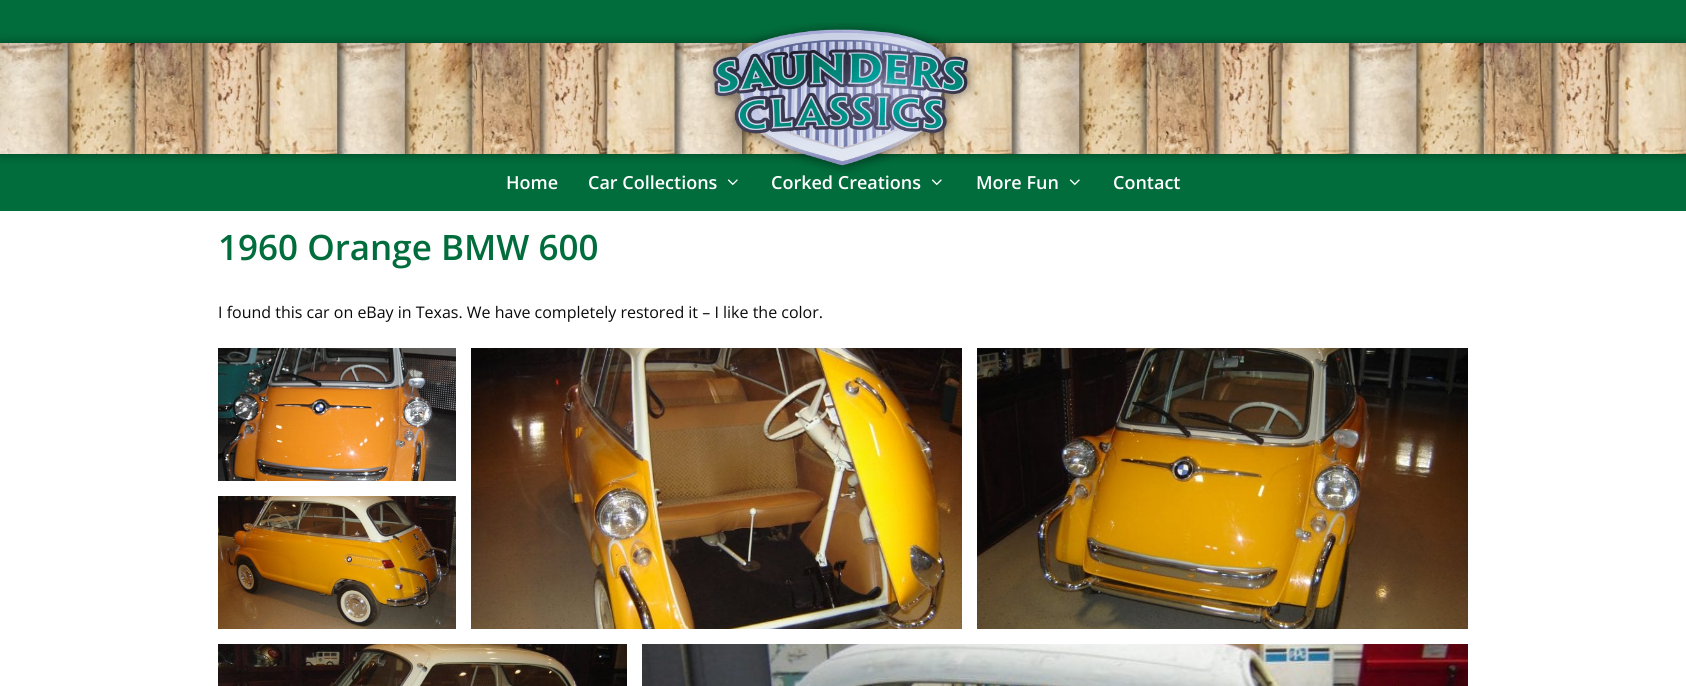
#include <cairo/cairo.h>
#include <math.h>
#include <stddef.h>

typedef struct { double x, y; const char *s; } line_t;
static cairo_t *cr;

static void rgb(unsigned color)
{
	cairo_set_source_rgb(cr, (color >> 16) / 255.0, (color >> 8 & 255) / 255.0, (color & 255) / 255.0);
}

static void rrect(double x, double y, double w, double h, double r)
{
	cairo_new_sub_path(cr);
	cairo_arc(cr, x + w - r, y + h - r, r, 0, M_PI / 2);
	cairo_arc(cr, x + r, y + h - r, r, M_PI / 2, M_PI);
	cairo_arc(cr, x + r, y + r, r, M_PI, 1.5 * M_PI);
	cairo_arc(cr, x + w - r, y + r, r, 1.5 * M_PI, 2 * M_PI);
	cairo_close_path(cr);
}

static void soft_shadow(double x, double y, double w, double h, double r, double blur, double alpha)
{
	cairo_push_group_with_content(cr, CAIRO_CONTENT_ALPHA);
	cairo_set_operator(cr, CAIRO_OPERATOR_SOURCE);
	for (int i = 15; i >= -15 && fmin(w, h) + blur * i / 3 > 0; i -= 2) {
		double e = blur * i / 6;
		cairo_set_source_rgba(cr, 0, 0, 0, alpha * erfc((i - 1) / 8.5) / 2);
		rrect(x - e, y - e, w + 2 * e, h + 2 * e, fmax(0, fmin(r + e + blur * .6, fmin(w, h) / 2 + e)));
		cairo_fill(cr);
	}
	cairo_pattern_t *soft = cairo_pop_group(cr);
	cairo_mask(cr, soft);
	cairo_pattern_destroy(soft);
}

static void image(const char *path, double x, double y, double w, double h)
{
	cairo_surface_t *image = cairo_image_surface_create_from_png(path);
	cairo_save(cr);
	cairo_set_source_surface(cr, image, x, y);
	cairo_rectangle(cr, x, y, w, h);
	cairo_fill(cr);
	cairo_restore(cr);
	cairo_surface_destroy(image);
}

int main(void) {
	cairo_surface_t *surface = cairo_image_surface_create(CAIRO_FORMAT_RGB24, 1686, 686);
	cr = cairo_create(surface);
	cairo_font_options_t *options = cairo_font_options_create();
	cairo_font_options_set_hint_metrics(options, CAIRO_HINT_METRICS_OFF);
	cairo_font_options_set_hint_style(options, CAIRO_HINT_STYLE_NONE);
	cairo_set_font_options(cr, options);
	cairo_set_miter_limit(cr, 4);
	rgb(0xffffff);
	cairo_paint(cr);
	rgb(0x016d3c);
	cairo_rectangle(cr, 0, 0, 1686, 43);
	cairo_fill(cr);
	cairo_rectangle(cr, 0, 154, 1686, 57);
	cairo_fill(cr);
	rgb(0x000000);
	soft_shadow(0, 43, 1686, 111, 0, 5.5, 0.4);
	image("img/1.png", 0, 43, 1686, 111);
	image("img/2.png", 706, 23, 271, 151);
	image("img/3.png", 727, 179, 11, 7);
	image("img/3.png", 931, 179, 11, 7);
	image("img/3.png", 1069, 179, 11, 7);
	image("img/4.png", 218, 348, 238, 133);
	image("img/5.png", 471, 348, 491, 281);
	image("img/6.png", 977, 348, 491, 281);
	image("img/7.png", 218, 496, 238, 133);
	image("img/8.png", 218, 644, 409, 42);
	image("img/9.png", 642, 644, 826, 42);
	cairo_select_font_face(cr, "Open Sans SemiBold", CAIRO_FONT_SLANT_NORMAL, CAIRO_FONT_WEIGHT_NORMAL);
	cairo_set_font_size(cr, 18);
	rgb(0xffffff);
	{
		static const line_t items[] = {
			{506, 189, "Home"},
			{588, 189, "Car Collections"},
			{771, 189, "Corked Creations"},
			{976, 189, "More Fun"},
			{1113, 189, "Contact"},
		};
		for (size_t i = 0; i < sizeof items / sizeof *items; i++) {
			cairo_move_to(cr, items[i].x, items[i].y);
			cairo_show_text(cr, items[i].s);
		}
	}
	cairo_set_font_size(cr, 35);
	rgb(0x016d3c);
	cairo_move_to(cr, 218, 260);
	cairo_show_text(cr, "1960 Orange BMW 600");
	cairo_select_font_face(cr, "Open Sans", CAIRO_FONT_SLANT_NORMAL, CAIRO_FONT_WEIGHT_NORMAL);
	cairo_set_font_size(cr, 16);
	rgb(0x0a0a0a);
	cairo_move_to(cr, 218, 318);
	cairo_show_text(cr, "I found this car on eBay in Texas. We have completely restored it – I like the color.");
	cairo_surface_write_to_png(surface, "page.png");
	cairo_font_options_destroy(options);
	cairo_destroy(cr);
	cairo_surface_destroy(surface);
	return 0;
}
